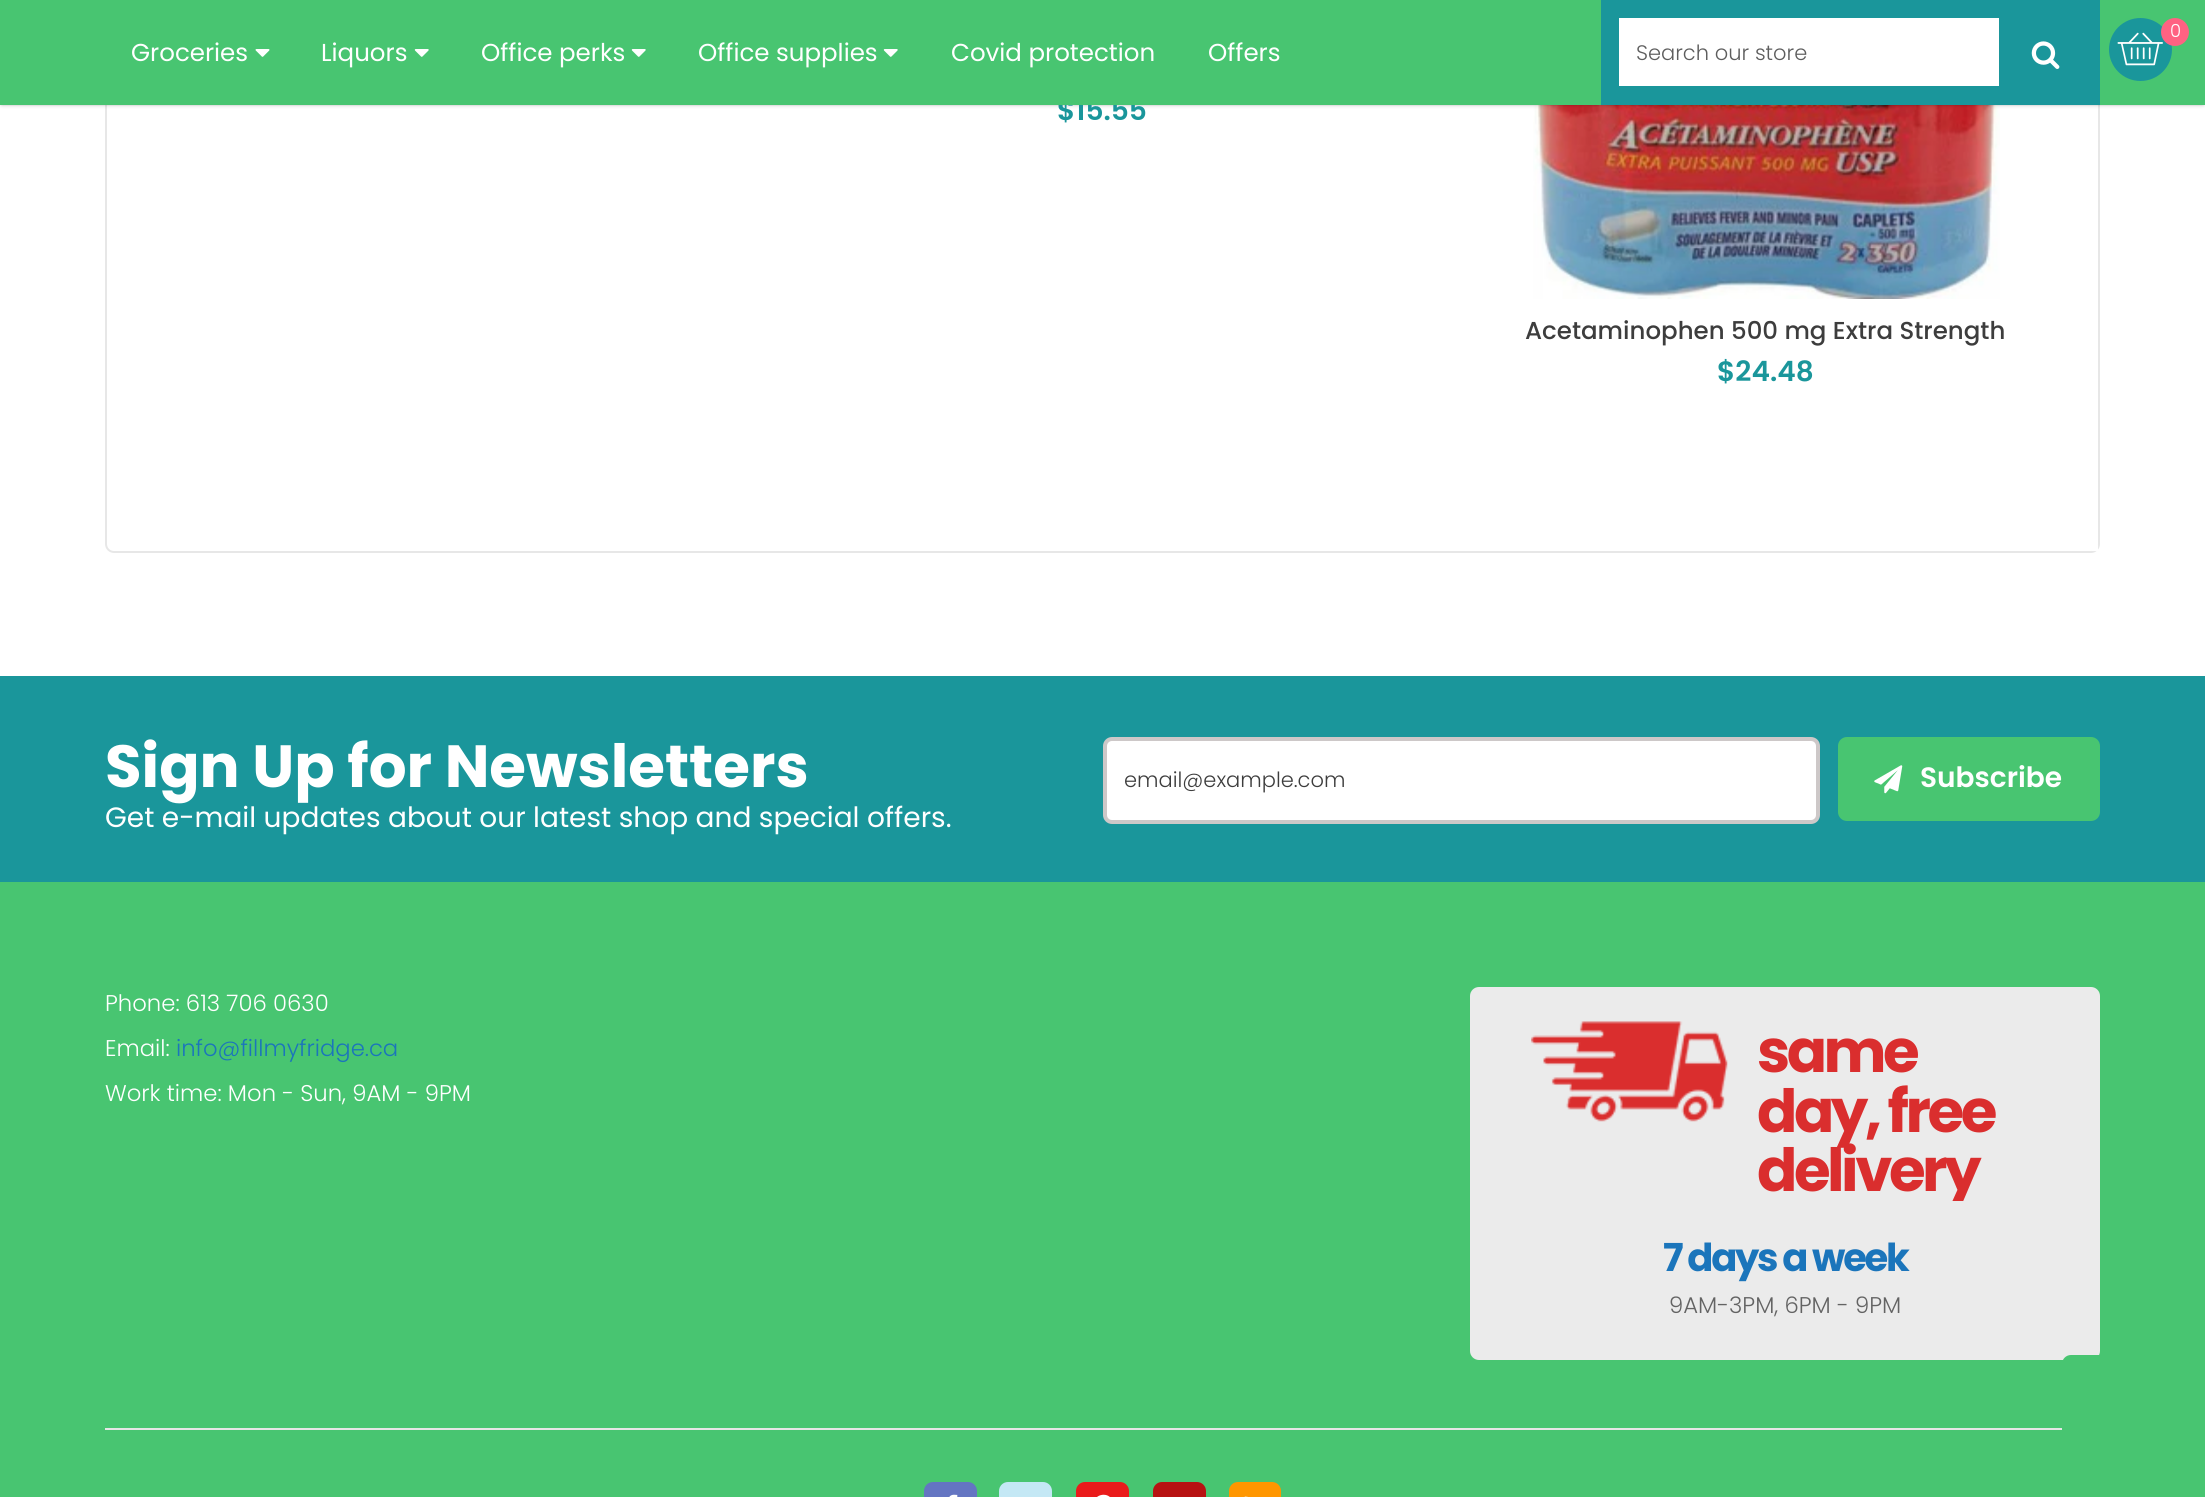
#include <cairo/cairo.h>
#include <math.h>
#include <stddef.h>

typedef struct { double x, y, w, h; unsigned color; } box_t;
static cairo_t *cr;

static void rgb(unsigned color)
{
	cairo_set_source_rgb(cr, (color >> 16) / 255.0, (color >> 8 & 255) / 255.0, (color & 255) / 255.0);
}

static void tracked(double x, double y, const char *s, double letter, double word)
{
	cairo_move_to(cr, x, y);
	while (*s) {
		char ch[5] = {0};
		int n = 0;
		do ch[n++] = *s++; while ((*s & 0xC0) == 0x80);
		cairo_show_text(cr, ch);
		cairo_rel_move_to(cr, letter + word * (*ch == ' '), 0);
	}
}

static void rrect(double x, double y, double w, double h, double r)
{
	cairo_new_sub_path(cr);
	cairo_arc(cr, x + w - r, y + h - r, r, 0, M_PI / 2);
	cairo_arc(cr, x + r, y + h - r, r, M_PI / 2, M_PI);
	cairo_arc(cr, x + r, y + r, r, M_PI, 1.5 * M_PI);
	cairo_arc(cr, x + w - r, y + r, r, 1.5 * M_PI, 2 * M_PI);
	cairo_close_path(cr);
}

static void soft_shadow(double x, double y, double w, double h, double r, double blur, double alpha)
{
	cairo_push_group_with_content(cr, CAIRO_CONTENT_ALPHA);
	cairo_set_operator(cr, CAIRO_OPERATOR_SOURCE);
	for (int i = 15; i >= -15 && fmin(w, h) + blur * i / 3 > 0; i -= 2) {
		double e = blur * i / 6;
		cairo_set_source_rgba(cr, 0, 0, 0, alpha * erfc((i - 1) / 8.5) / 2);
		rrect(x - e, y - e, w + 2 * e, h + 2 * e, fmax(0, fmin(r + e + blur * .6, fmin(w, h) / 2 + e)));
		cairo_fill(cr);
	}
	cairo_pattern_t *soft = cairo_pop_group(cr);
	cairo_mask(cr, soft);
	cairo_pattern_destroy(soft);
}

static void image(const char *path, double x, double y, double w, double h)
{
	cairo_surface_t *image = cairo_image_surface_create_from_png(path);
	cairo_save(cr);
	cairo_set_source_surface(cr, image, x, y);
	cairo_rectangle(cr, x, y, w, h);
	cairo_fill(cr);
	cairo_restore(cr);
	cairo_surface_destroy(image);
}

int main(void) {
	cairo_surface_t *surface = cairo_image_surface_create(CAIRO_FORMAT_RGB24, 2205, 1497);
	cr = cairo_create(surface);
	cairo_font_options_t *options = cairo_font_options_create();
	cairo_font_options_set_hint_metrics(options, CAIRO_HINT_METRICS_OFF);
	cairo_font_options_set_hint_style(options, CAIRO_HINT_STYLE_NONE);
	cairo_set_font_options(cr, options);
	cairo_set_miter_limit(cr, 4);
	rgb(0xffffff);
	cairo_paint(cr);
	rrect(106, -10, 1993, 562, 8);
	rgb(0xe7e7e7);
	cairo_stroke(cr);
	image("img/5.png", 1533, 105, 467, 194);
	rgb(0x000000);
	soft_shadow(2, 2, 2201, 101, 0, 2.5, 0.75);
	{
		static const box_t items[] = {
			{2092, 545, 6, 6, 0xffffff},
			{0, 882, 2205, 615, 0x48c571},
			{0, 676, 2205, 206, 0x1a969b},
		};
		for (size_t i = 0; i < sizeof items / sizeof *items; i++) {
			rgb(items[i].color);
			cairo_rectangle(cr, items[i].x, items[i].y, items[i].w, items[i].h);
			cairo_fill(cr);
		}
	}
	rgb(0xffffff);
	rrect(1105, 739, 713, 83, 7);
	cairo_fill_preserve(cr);
	rgb(0xcdc8c8);
	cairo_set_line_width(cr, 4);
	cairo_stroke(cr);
	rgb(0x48c571);
	rrect(1838, 737, 262, 84, 9);
	cairo_fill(cr);
	image("img/6.png", 1874, 765, 29, 29);
	rgb(0xebebeb);
	rrect(1470, 987, 630, 373, 9);
	cairo_fill(cr);
	image("img/7.png", 1531, 1021, 197, 101);
	rgb(0xe6e6e6);
	cairo_rectangle(cr, 105, 1428, 1957, 2);
	cairo_fill(cr);
	rgb(0x6475c2);
	rrect(924, 1482, 53, 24, 9);
	cairo_fill(cr);
	image("img/8.png", 949, 1494, 9, 3);
	rgb(0xc4e8f5);
	rrect(999, 1482, 53, 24, 9);
	cairo_fill(cr);
	rgb(0xea1b1b);
	rrect(1076, 1482, 53, 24, 9);
	cairo_fill(cr);
	image("img/9.png", 1097, 1494, 13, 3);
	rgb(0xb71212);
	rrect(1153, 1482, 53, 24, 9);
	cairo_fill(cr);
	rgb(0xff9600);
	rrect(1229, 1482, 52, 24, 9);
	cairo_fill(cr);
	image("img/10.png", 1244, 1496, 4, 1);
	rgb(0x48c571);
	rrect(2062, 1355, 91, 91, 9);
	cairo_fill(cr);
	cairo_select_font_face(cr, "Poppins SemiBold", CAIRO_FONT_SLANT_NORMAL, CAIRO_FONT_WEIGHT_NORMAL);
	cairo_set_font_size(cr, 28);
	rgb(0x1a969b);
	cairo_move_to(cr, 1057, 120);
	cairo_show_text(cr, "$15.55");
	rgb(0x48c571);
	cairo_rectangle(cr, 0, 0, 2205, 105);
	cairo_fill(cr);
	rgb(0x1a969b);
	cairo_arc(cr, 2140.5, 49.5, 31.5, 0, 2 * M_PI);
	cairo_fill(cr);
	image("img/3.png", 2117, 32, 46, 34);
	rgb(0xff6282);
	cairo_arc(cr, 2175, 32, 14, 0, 2 * M_PI);
	cairo_fill(cr);
	cairo_select_font_face(cr, "Poppins Light", CAIRO_FONT_SLANT_NORMAL, CAIRO_FONT_WEIGHT_NORMAL);
	cairo_set_font_size(cr, 18);
	rgb(0xffffff);
	cairo_move_to(cr, 2170, 37);
	cairo_show_text(cr, "0");
	rgb(0x1a969b);
	cairo_rectangle(cr, 1601, 0, 499, 105);
	cairo_fill(cr);
	image("img/4.png", 2031, 41, 29, 28);
	rgb(0xffffff);
	cairo_rectangle(cr, 1619, 18, 380, 68);
	cairo_fill(cr);
	cairo_set_font_size(cr, 21);
	rgb(0x5d5d5d);
	cairo_move_to(cr, 1636, 60);
	cairo_show_text(cr, "Search our store");
	cairo_select_font_face(cr, "Poppins", CAIRO_FONT_SLANT_NORMAL, CAIRO_FONT_WEIGHT_NORMAL);
	cairo_set_font_size(cr, 24.5);
	rgb(0xffffff);
	cairo_move_to(cr, 1208, 61);
	cairo_show_text(cr, "Offers");
	cairo_move_to(cr, 951, 61);
	cairo_show_text(cr, "Covid protection");
	image("img/2.png", 883, 49, 15, 8);
	cairo_move_to(cr, 698, 61);
	cairo_show_text(cr, "Office supplies");
	image("img/2.png", 631, 49, 15, 8);
	cairo_move_to(cr, 481, 61);
	cairo_show_text(cr, "Office perks");
	image("img/2.png", 414, 49, 15, 8);
	cairo_move_to(cr, 321, 61);
	cairo_show_text(cr, "Liquors");
	image("img/1.png", 255, 49, 15, 8);
	cairo_move_to(cr, 131, 61);
	cairo_show_text(cr, "Groceries");
	cairo_select_font_face(cr, "Poppins Medium", CAIRO_FONT_SLANT_NORMAL, CAIRO_FONT_WEIGHT_NORMAL);
	rgb(0x3d3d3d);
	cairo_move_to(cr, 1525, 339);
	cairo_show_text(cr, "Acetaminophen 500 mg Extra Strength");
	cairo_select_font_face(cr, "Poppins SemiBold", CAIRO_FONT_SLANT_NORMAL, CAIRO_FONT_WEIGHT_NORMAL);
	cairo_set_font_size(cr, 28);
	rgb(0x1a969b);
	cairo_move_to(cr, 1717, 381);
	cairo_show_text(cr, "$24.48");
	cairo_select_font_face(cr, "Poppins", CAIRO_FONT_SLANT_NORMAL, CAIRO_FONT_WEIGHT_BOLD);
	cairo_set_font_size(cr, 59.5);
	rgb(0xffffff);
	cairo_move_to(cr, 105, 787);
	cairo_show_text(cr, "Sign Up for Newsletters");
	cairo_select_font_face(cr, "Poppins", CAIRO_FONT_SLANT_NORMAL, CAIRO_FONT_WEIGHT_NORMAL);
	cairo_set_font_size(cr, 28);
	cairo_move_to(cr, 105, 827);
	cairo_show_text(cr, "Get e-mail updates about our latest shop and special offers.");
	cairo_select_font_face(cr, "Poppins Light", CAIRO_FONT_SLANT_NORMAL, CAIRO_FONT_WEIGHT_NORMAL);
	cairo_set_font_size(cr, 21);
	rgb(0x3d3d3d);
	cairo_move_to(cr, 1124, 787);
	cairo_show_text(cr, "email@example.com");
	cairo_select_font_face(cr, "Poppins SemiBold", CAIRO_FONT_SLANT_NORMAL, CAIRO_FONT_WEIGHT_NORMAL);
	cairo_set_font_size(cr, 28);
	rgb(0xffffff);
	cairo_move_to(cr, 1920, 787);
	cairo_show_text(cr, "Subscribe");
	cairo_select_font_face(cr, "Poppins Light", CAIRO_FONT_SLANT_NORMAL, CAIRO_FONT_WEIGHT_NORMAL);
	cairo_set_font_size(cr, 22.75);
	cairo_move_to(cr, 105, 1011);
	cairo_show_text(cr, "Phone: 613 706 0630");
	cairo_move_to(cr, 105, 1056);
	cairo_show_text(cr, "Email:");
	rgb(0x1b75bb);
	cairo_move_to(cr, 176, 1056);
	cairo_show_text(cr, "info@fillmyfridge.ca");
	rgb(0xffffff);
	cairo_move_to(cr, 105, 1101);
	cairo_show_text(cr, "Work time: Mon - Sun, 9AM - 9PM");
	cairo_select_font_face(cr, "Poppins", CAIRO_FONT_SLANT_NORMAL, CAIRO_FONT_WEIGHT_BOLD);
	cairo_set_font_size(cr, 59.5);
	rgb(0xda2e2e);
	tracked(1757, 1072, "same", -3.5, 0);
	tracked(1757, 1132, "day, free", -3.5, 0);
	cairo_save(cr);
	cairo_rectangle(cr, 1740, 1022, 299, 179);
	cairo_clip(cr);
	tracked(1757, 1191, "delivery", -3.5, 0);
	cairo_restore(cr);
	cairo_set_font_size(cr, 38.5);
	rgb(0x1b75bb);
	tracked(1663, 1271, "7 days a week", -2.25, 0);
	cairo_select_font_face(cr, "Poppins Light", CAIRO_FONT_SLANT_NORMAL, CAIRO_FONT_WEIGHT_NORMAL);
	cairo_set_font_size(cr, 22.75);
	rgb(0x636363);
	cairo_move_to(cr, 1669, 1313);
	cairo_show_text(cr, "9AM-3PM, 6PM - 9PM");
	cairo_surface_write_to_png(surface, "page.png");
	cairo_font_options_destroy(options);
	cairo_destroy(cr);
	cairo_surface_destroy(surface);
	return 0;
}
